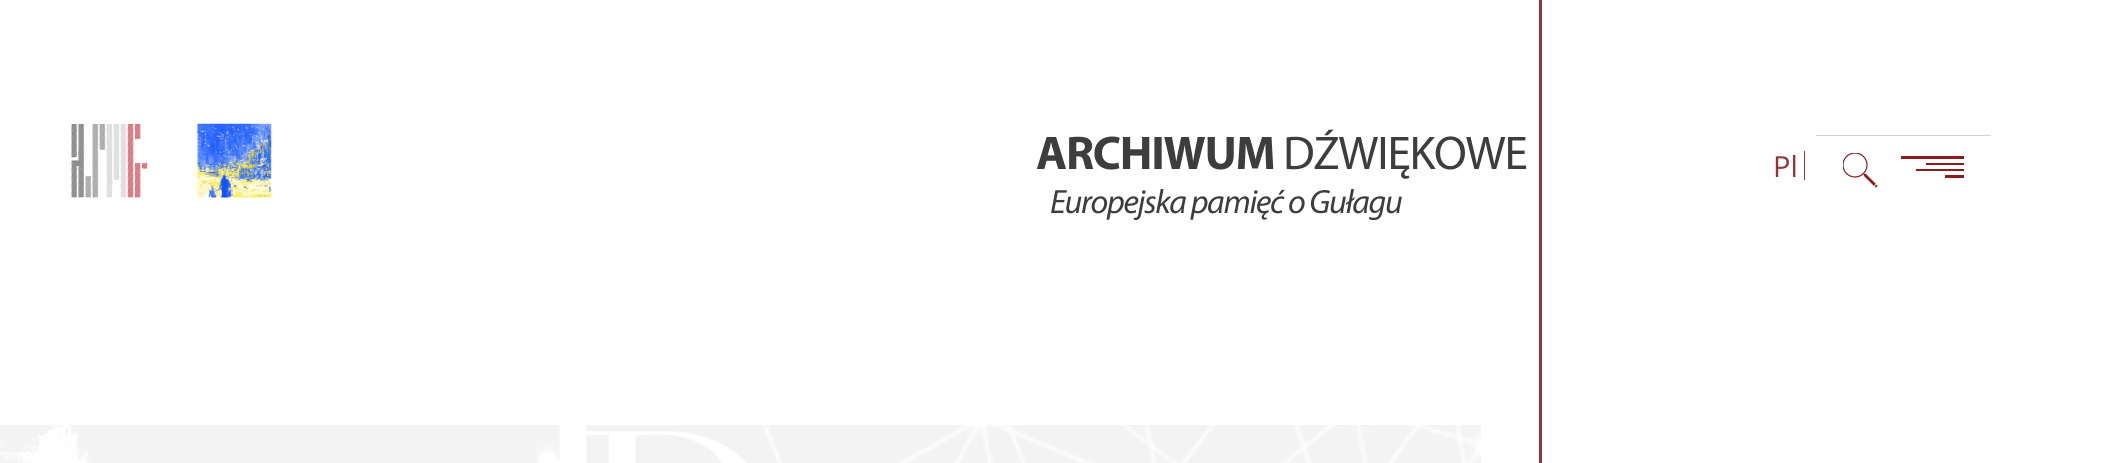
#include <cairo/cairo.h>
#include <math.h>
#include <stddef.h>

typedef struct { double x, y, w, h; unsigned color; } box_t;
static cairo_t *cr;

static void rgb(unsigned color)
{
	cairo_set_source_rgb(cr, (color >> 16) / 255.0, (color >> 8 & 255) / 255.0, (color & 255) / 255.0);
}

static void tracked(double x, double y, const char *s, double letter, double word)
{
	cairo_move_to(cr, x, y);
	while (*s) {
		char ch[5] = {0};
		int n = 0;
		do ch[n++] = *s++; while ((*s & 0xC0) == 0x80);
		cairo_show_text(cr, ch);
		cairo_rel_move_to(cr, letter + word * (*ch == ' '), 0);
	}
}

static void image(const char *path, double x, double y, double w, double h)
{
	cairo_surface_t *image = cairo_image_surface_create_from_png(path);
	cairo_save(cr);
	cairo_set_source_surface(cr, image, x, y);
	cairo_rectangle(cr, x, y, w, h);
	cairo_fill(cr);
	cairo_restore(cr);
	cairo_surface_destroy(image);
}

int main(void) {
	cairo_surface_t *surface = cairo_image_surface_create(CAIRO_FORMAT_RGB24, 2116, 463);
	cr = cairo_create(surface);
	cairo_font_options_t *options = cairo_font_options_create();
	cairo_font_options_set_hint_metrics(options, CAIRO_HINT_METRICS_OFF);
	cairo_font_options_set_hint_style(options, CAIRO_HINT_STYLE_NONE);
	cairo_set_font_options(cr, options);
	cairo_set_miter_limit(cr, 4);
	rgb(0xffffff);
	cairo_paint(cr);
	rgb(0xf3f3f3);
	cairo_rectangle(cr, 0, 425, 1481, 38);
	cairo_fill(cr);
	image("img/1.png", 0, 425, 92, 38);
	image("img/3.png", 559, 425, 187, 38);
	image("img/2.png", 536, 425, 945, 38);
	rgb(0x943437);
	cairo_rectangle(cr, 1539, 0, 3, 463);
	cairo_fill(cr);
	image("img/4.png", 71, 124, 77, 74);
	image("img/5.png", 197, 123, 75, 75);
	rgb(0xd5d5d5);
	cairo_rectangle(cr, 1816, 135, 175, 1);
	cairo_fill(cr);
	rgb(0x943437);
	cairo_rectangle(cr, 1804, 151, 1, 29);
	cairo_fill(cr);
	image("img/6.png", 1843, 153, 35, 35);
	{
		static const box_t items[] = {
			{1901, 156, 63, 3, 0x8b1b1e},
			{1926, 163, 38, 2, 0x8b1b1e},
			{1916, 169, 48, 2, 0x8b1b1e},
			{1945, 175, 19, 3, 0x8b1b1e},
		};
		for (size_t i = 0; i < sizeof items / sizeof *items; i++) {
			rgb(items[i].color);
			cairo_rectangle(cr, items[i].x, items[i].y, items[i].w, items[i].h);
			cairo_fill(cr);
		}
	}
	cairo_select_font_face(cr, "Myriad", CAIRO_FONT_SLANT_NORMAL, CAIRO_FONT_WEIGHT_BOLD);
	cairo_set_font_size(cr, 47.5);
	rgb(0x3d3d3d);
	tracked(1036, 169, "ARCHIWUM", -1.25, 0);
	cairo_select_font_face(cr, "Myriad", CAIRO_FONT_SLANT_NORMAL, CAIRO_FONT_WEIGHT_NORMAL);
	tracked(1283, 169, "DŹWIĘKOWE", -1.25, 0);
	cairo_select_font_face(cr, "Myriad", CAIRO_FONT_SLANT_ITALIC, CAIRO_FONT_WEIGHT_NORMAL);
	cairo_set_font_size(cr, 33.75);
	tracked(1050, 213, "Europejska pamięć o Gułagu", -1.25, 0);
	cairo_select_font_face(cr, "Open Sans", CAIRO_FONT_SLANT_NORMAL, CAIRO_FONT_WEIGHT_NORMAL);
	cairo_set_font_size(cr, 29);
	rgb(0x943437);
	cairo_move_to(cr, 1773, 177);
	cairo_show_text(cr, "Pl");
	cairo_surface_write_to_png(surface, "page.png");
	cairo_font_options_destroy(options);
	cairo_destroy(cr);
	cairo_surface_destroy(surface);
	return 0;
}
